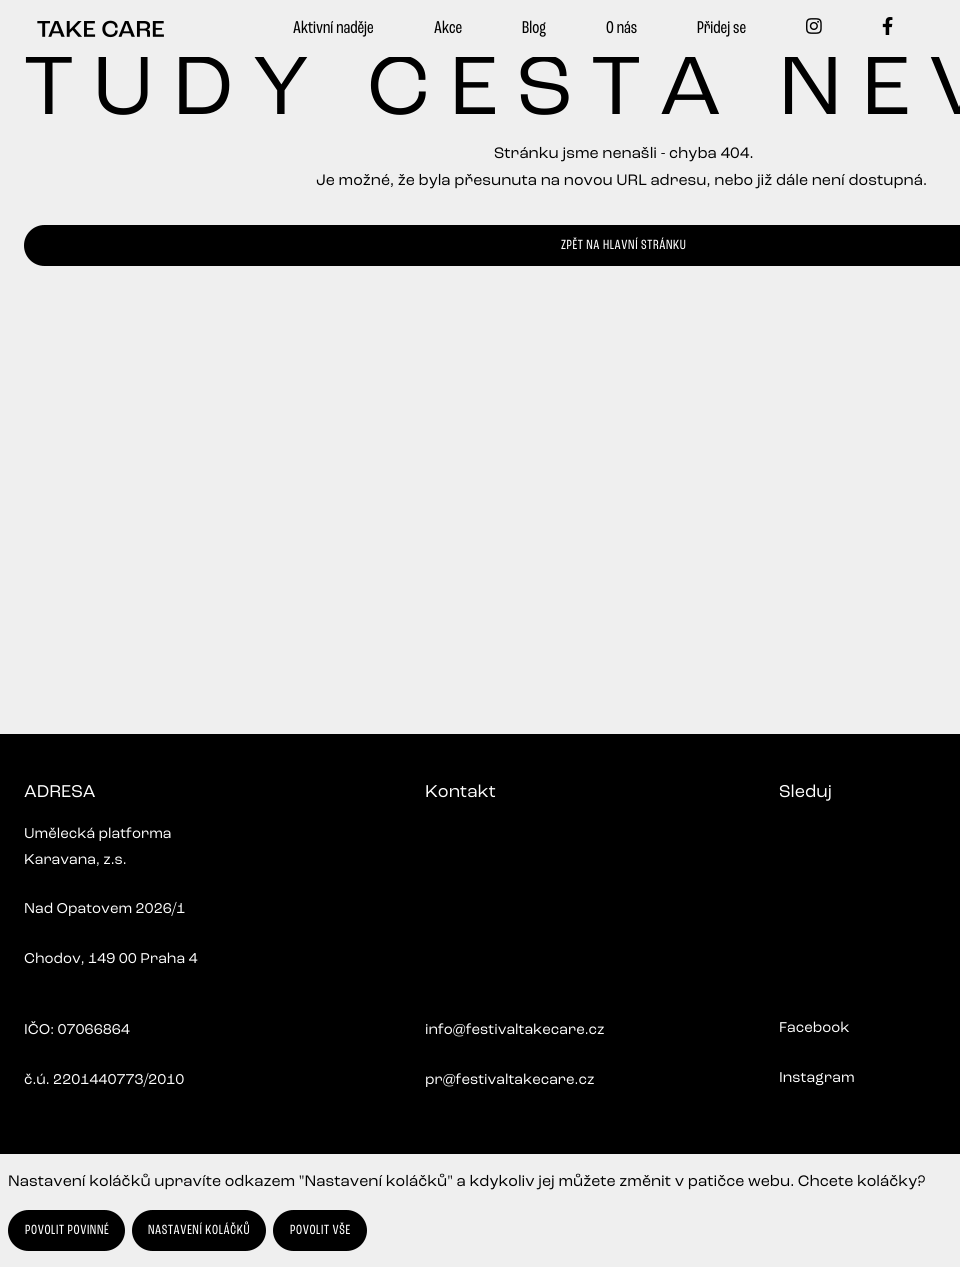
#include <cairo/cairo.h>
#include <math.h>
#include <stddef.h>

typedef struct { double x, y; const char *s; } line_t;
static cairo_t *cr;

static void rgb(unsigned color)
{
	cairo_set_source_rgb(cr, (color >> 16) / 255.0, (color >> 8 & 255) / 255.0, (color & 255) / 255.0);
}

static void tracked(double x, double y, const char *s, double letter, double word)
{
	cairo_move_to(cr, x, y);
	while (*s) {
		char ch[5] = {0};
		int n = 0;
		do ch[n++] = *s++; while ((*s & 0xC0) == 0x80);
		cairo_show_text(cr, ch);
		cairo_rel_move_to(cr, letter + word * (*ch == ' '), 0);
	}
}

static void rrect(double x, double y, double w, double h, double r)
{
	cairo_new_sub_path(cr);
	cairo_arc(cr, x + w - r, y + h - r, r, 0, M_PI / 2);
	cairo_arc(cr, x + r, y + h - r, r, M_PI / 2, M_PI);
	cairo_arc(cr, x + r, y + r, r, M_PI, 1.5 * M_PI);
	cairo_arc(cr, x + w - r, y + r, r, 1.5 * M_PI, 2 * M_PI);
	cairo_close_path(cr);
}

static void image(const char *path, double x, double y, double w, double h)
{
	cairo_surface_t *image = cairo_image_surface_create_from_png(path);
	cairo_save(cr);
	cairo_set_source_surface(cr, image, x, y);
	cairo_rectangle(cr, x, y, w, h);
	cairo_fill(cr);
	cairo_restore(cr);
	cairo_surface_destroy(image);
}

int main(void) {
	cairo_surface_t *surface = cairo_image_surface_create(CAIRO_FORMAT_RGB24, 960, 1267);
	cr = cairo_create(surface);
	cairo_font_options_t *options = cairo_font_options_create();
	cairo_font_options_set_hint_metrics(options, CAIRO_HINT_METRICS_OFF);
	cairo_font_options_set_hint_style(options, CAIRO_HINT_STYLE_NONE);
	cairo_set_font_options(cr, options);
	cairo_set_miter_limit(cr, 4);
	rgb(0xefefef);
	cairo_paint(cr);
	image("img/1.png", 37, 20, 127, 18);
	image("img/2.png", 806, 18, 16, 16);
	image("img/3.png", 882, 17, 11, 18);
	rgb(0x000000);
	rrect(24, 225, 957, 41, 20.5);
	cairo_fill(cr);
	cairo_rectangle(cr, 0, 734, 960, 420);
	cairo_fill(cr);
	rrect(8, 1210, 117, 41, 20.5);
	cairo_fill(cr);
	rrect(132, 1210, 134, 41, 20.5);
	cairo_fill(cr);
	rrect(273, 1210, 94, 41, 20.5);
	cairo_fill(cr);
	cairo_select_font_face(cr, "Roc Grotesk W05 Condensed", CAIRO_FONT_SLANT_NORMAL, CAIRO_FONT_WEIGHT_NORMAL);
	cairo_set_font_size(cr, 18);
	{
		static const line_t items[] = {
			{293, 33, "Aktivní naděje"},
			{434, 33, "Akce"},
			{522, 33, "Blog"},
			{606, 33, "O nás"},
			{697, 33, "Přidej se"},
		};
		for (size_t i = 0; i < sizeof items / sizeof *items; i++) {
			cairo_move_to(cr, items[i].x, items[i].y);
			cairo_show_text(cr, items[i].s);
		}
	}
	cairo_select_font_face(cr, "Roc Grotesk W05", CAIRO_FONT_SLANT_NORMAL, CAIRO_FONT_WEIGHT_NORMAL);
	cairo_set_font_size(cr, 88);
	tracked(24, 114, "TUDY CESTA NEV", 18.25, 0);
	rgb(0xefefef);
	cairo_rectangle(cr, 25, 55, 915, 2);
	cairo_fill(cr);
	cairo_set_font_size(cr, 16);
	rgb(0x000000);
	cairo_move_to(cr, 494, 158);
	cairo_show_text(cr, "Stránku jsme nenašli - chyba 404.");
	cairo_move_to(cr, 316, 185);
	cairo_show_text(cr, "Je možné, že byla přesunuta na novou URL adresu, nebo již dále není dostupná.");
	cairo_select_font_face(cr, "Roc Grotesk W05 Condensed", CAIRO_FONT_SLANT_NORMAL, CAIRO_FONT_WEIGHT_NORMAL);
	cairo_set_font_size(cr, 14);
	rgb(0xffffff);
	tracked(561, 249, "ZPĚT NA HLAVNÍ STRÁNKU", 0.6, 0);
	cairo_select_font_face(cr, "Roc Grotesk W05", CAIRO_FONT_SLANT_NORMAL, CAIRO_FONT_WEIGHT_NORMAL);
	cairo_set_font_size(cr, 18);
	cairo_move_to(cr, 24, 797);
	cairo_show_text(cr, "ADRESA");
	cairo_set_font_size(cr, 15);
	{
		static const line_t items[] = {
			{24, 838, "Umělecká platforma"},
			{24, 864, "Karavana, z.s."},
			{24, 913, "Nad Opatovem 2026/1"},
			{24, 963, "Chodov, 149 00 Praha 4"},
			{24, 1034, "IČO: 07066864"},
			{24, 1084, "č.ú. 2201440773/2010"},
		};
		for (size_t i = 0; i < sizeof items / sizeof *items; i++) {
			cairo_move_to(cr, items[i].x, items[i].y);
			cairo_show_text(cr, items[i].s);
		}
	}
	cairo_set_font_size(cr, 18);
	cairo_move_to(cr, 425, 797);
	cairo_show_text(cr, "Kontakt");
	cairo_set_font_size(cr, 15);
	cairo_move_to(cr, 425, 1034);
	cairo_show_text(cr, "info@festivaltakecare.cz");
	cairo_move_to(cr, 425, 1084);
	cairo_show_text(cr, "pr@festivaltakecare.cz");
	cairo_set_font_size(cr, 18);
	cairo_move_to(cr, 779, 797);
	cairo_show_text(cr, "Sleduj");
	cairo_set_font_size(cr, 15);
	cairo_move_to(cr, 779, 1032);
	cairo_show_text(cr, "Facebook");
	cairo_move_to(cr, 779, 1082);
	cairo_show_text(cr, "Instagram");
	cairo_set_font_size(cr, 16);
	rgb(0x000000);
	cairo_move_to(cr, 8, 1186);
	cairo_show_text(cr, "Nastavení koláčků upravíte odkazem \"Nastavení koláčků\" a kdykoliv jej můžete změnit v patičce webu. Chcete koláčky?");
	cairo_select_font_face(cr, "Roc Grotesk W05 Condensed", CAIRO_FONT_SLANT_NORMAL, CAIRO_FONT_WEIGHT_NORMAL);
	cairo_set_font_size(cr, 14);
	rgb(0xffffff);
	{
		static const line_t items[] = {
			{25, 1234, "POVOLIT POVINNÉ"},
			{148, 1234, "NASTAVENÍ KOLÁČKŮ"},
			{290, 1234, "POVOLIT VŠE"},
		};
		for (size_t i = 0; i < sizeof items / sizeof *items; i++) {
			tracked(items[i].x, items[i].y, items[i].s, 0.6, 0);
		}
	}
	cairo_surface_write_to_png(surface, "page.png");
	cairo_font_options_destroy(options);
	cairo_destroy(cr);
	cairo_surface_destroy(surface);
	return 0;
}
